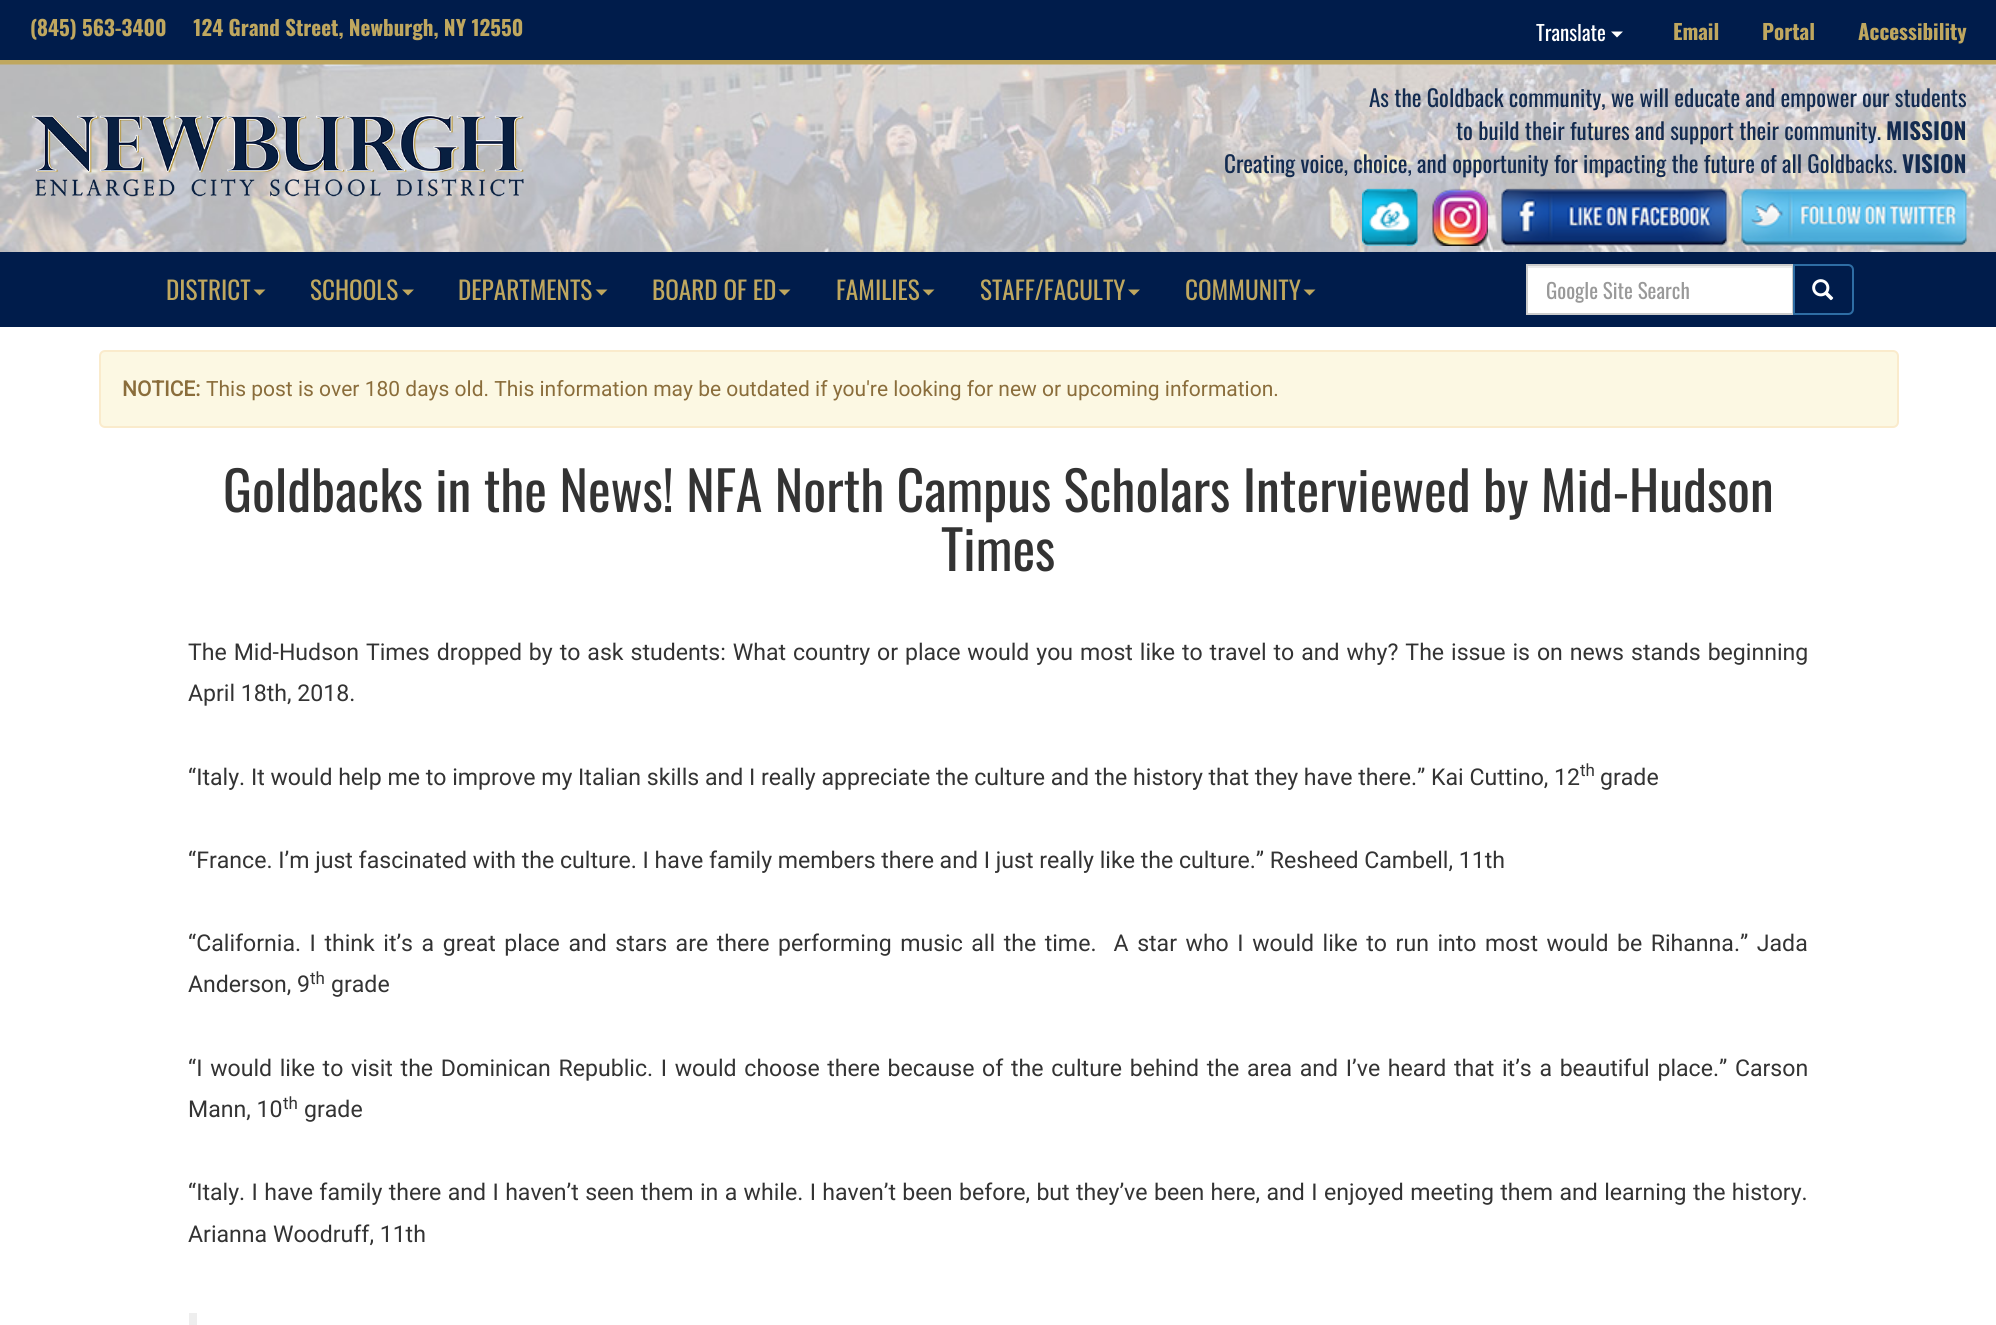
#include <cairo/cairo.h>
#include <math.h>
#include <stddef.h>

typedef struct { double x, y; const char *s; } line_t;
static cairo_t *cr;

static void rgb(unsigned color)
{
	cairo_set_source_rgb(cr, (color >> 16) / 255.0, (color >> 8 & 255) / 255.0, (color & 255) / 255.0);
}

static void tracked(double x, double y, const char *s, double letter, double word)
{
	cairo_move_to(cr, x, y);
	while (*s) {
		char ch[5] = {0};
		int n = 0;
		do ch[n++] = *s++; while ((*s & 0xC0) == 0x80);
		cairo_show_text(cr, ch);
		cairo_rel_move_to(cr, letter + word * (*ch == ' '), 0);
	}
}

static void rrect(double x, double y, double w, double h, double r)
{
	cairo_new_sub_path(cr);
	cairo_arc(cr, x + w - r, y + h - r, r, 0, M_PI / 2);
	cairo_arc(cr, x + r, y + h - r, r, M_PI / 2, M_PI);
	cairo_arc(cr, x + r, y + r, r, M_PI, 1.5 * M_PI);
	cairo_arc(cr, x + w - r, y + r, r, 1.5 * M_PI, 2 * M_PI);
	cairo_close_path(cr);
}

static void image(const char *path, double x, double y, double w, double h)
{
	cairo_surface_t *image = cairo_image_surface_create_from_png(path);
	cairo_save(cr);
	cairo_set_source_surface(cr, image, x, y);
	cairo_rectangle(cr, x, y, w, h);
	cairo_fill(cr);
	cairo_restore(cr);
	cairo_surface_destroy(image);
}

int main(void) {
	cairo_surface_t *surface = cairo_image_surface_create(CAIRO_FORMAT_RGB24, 1996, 1325);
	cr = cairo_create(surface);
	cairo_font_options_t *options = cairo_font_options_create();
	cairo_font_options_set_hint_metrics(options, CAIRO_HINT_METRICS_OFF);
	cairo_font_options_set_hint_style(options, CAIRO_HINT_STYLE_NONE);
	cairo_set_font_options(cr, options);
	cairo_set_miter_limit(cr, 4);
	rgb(0xffffff);
	cairo_paint(cr);
	rgb(0x001c4b);
	cairo_rectangle(cr, 0, 0, 1996, 60);
	cairo_fill(cr);
	rgb(0xffffff);
	cairo_new_path(cr);
	cairo_move_to(cr, 1611, 31.5);
	cairo_line_to(cr, 1623, 31.5);
	cairo_line_to(cr, 1617, 37.5);
	cairo_close_path(cr);
	cairo_fill(cr);
	rgb(0xbfa75f);
	cairo_rectangle(cr, 0, 60, 1996, 5);
	cairo_fill(cr);
	image("img/1.png", 0, 64, 1996, 188);
	image("img/2.png", 32, 115, 492, 82);
	image("img/3.png", 1362, 188, 56, 58);
	image("img/4.png", 1432, 188, 56, 58);
	image("img/5.png", 1501, 188, 226, 58);
	image("img/6.png", 1741, 188, 226, 58);
	rgb(0x001c4b);
	cairo_rectangle(cr, 0, 252, 1996, 75);
	cairo_fill(cr);
	rgb(0xbfa75f);
	cairo_new_path(cr);
	cairo_move_to(cr, 253.5, 289.5);
	cairo_line_to(cr, 265.5, 289.5);
	cairo_line_to(cr, 259.5, 295.5);
	cairo_close_path(cr);
	cairo_fill(cr);
	cairo_new_path(cr);
	cairo_move_to(cr, 402, 289.5);
	cairo_line_to(cr, 414, 289.5);
	cairo_line_to(cr, 408, 295.5);
	cairo_close_path(cr);
	cairo_fill(cr);
	cairo_new_path(cr);
	cairo_move_to(cr, 595.5, 289.5);
	cairo_line_to(cr, 607.5, 289.5);
	cairo_line_to(cr, 601.5, 295.5);
	cairo_close_path(cr);
	cairo_fill(cr);
	cairo_new_path(cr);
	cairo_move_to(cr, 778.5, 289.5);
	cairo_line_to(cr, 790.5, 289.5);
	cairo_line_to(cr, 784.5, 295.5);
	cairo_close_path(cr);
	cairo_fill(cr);
	cairo_new_path(cr);
	cairo_move_to(cr, 922.5, 289.5);
	cairo_line_to(cr, 934.5, 289.5);
	cairo_line_to(cr, 928.5, 295.5);
	cairo_close_path(cr);
	cairo_fill(cr);
	cairo_new_path(cr);
	cairo_move_to(cr, 1128, 289.5);
	cairo_line_to(cr, 1140, 289.5);
	cairo_line_to(cr, 1134, 295.5);
	cairo_close_path(cr);
	cairo_fill(cr);
	cairo_new_path(cr);
	cairo_move_to(cr, 1303.5, 289.5);
	cairo_line_to(cr, 1315.5, 289.5);
	cairo_line_to(cr, 1309.5, 295.5);
	cairo_close_path(cr);
	cairo_fill(cr);
	rgb(0xffffff);
	cairo_rectangle(cr, 1528, 268, 264, 45);
	cairo_fill(cr);
	rgb(0xececec);
	cairo_rectangle(cr, 1527, 266, 266, 2);
	cairo_fill(cr);
	cairo_rectangle(cr, 1527, 265, 266, 49);
	rgb(0xcccccc);
	cairo_stroke(cr);
	rgb(0x001c4b);
	cairo_new_path(cr);
	cairo_move_to(cr, 1794, 265);
	cairo_line_to(cr, 1848, 265);
	cairo_curve_to(cr, 1851, 265, 1853, 267, 1853, 270);
	cairo_line_to(cr, 1853, 309);
	cairo_curve_to(cr, 1853, 312, 1851, 314, 1848, 314);
	cairo_line_to(cr, 1794, 314);
	cairo_close_path(cr);
	cairo_fill_preserve(cr);
	rgb(0x2e6da4);
	cairo_stroke(cr);
	image("img/7.png", 1812, 279, 22, 22);
	rgb(0xfcf8e3);
	rrect(100, 351, 1798, 76, 5);
	cairo_fill_preserve(cr);
	rgb(0xfaebcc);
	cairo_stroke(cr);
	rgb(0xeeeeee);
	cairo_rectangle(cr, 189, 1313, 8, 12);
	cairo_fill(cr);
	cairo_select_font_face(cr, "Oswald", CAIRO_FONT_SLANT_NORMAL, CAIRO_FONT_WEIGHT_BOLD);
	cairo_set_font_size(cr, 21);
	rgb(0xbfa75f);
	cairo_move_to(cr, 30, 36);
	cairo_show_text(cr, "(845) 563-3400     124 Grand Street, Newburgh, NY 12550");
	cairo_select_font_face(cr, "Oswald", CAIRO_FONT_SLANT_NORMAL, CAIRO_FONT_WEIGHT_NORMAL);
	rgb(0xffffff);
	cairo_move_to(cr, 1536, 41);
	cairo_show_text(cr, "Translate");
	cairo_select_font_face(cr, "Oswald", CAIRO_FONT_SLANT_NORMAL, CAIRO_FONT_WEIGHT_BOLD);
	rgb(0xbfa75f);
	{
		static const line_t items[] = {
			{1673, 40, "Email"},
			{1762, 40, "Portal"},
			{1858, 40, "Accessibility"},
		};
		for (size_t i = 0; i < sizeof items / sizeof *items; i++) {
			cairo_move_to(cr, items[i].x, items[i].y);
			cairo_show_text(cr, items[i].s);
		}
	}
	cairo_select_font_face(cr, "Oswald", CAIRO_FONT_SLANT_NORMAL, CAIRO_FONT_WEIGHT_NORMAL);
	cairo_set_font_size(cr, 23.1);
	rgb(0x132b50);
	cairo_move_to(cr, 1369, 107);
	cairo_show_text(cr, "As the Goldback community, we will educate and empower our students");
	cairo_move_to(cr, 1456, 140);
	cairo_show_text(cr, "to build their futures and support their community.");
	cairo_select_font_face(cr, "Oswald", CAIRO_FONT_SLANT_NORMAL, CAIRO_FONT_WEIGHT_BOLD);
	cairo_move_to(cr, 1886, 140);
	cairo_show_text(cr, "MISSION");
	cairo_select_font_face(cr, "Oswald", CAIRO_FONT_SLANT_NORMAL, CAIRO_FONT_WEIGHT_NORMAL);
	cairo_move_to(cr, 1224, 173);
	cairo_show_text(cr, "Creating voice, choice, and opportunity for impacting the future of all Goldbacks.");
	cairo_select_font_face(cr, "Oswald", CAIRO_FONT_SLANT_NORMAL, CAIRO_FONT_WEIGHT_BOLD);
	cairo_move_to(cr, 1902, 173);
	cairo_show_text(cr, "VISION");
	cairo_select_font_face(cr, "Oswald", CAIRO_FONT_SLANT_NORMAL, CAIRO_FONT_WEIGHT_NORMAL);
	cairo_set_font_size(cr, 25.25);
	rgb(0xbfa75f);
	{
		static const line_t items[] = {
			{166, 300, "DISTRICT"},
			{310, 300, "SCHOOLS"},
			{458, 300, "DEPARTMENTS"},
			{652, 300, "BOARD OF ED"},
			{836, 300, "FAMILIES"},
			{980, 300, "STAFF/FACULTY"},
			{1185, 300, "COMMUNITY"},
		};
		for (size_t i = 0; i < sizeof items / sizeof *items; i++) {
			cairo_move_to(cr, items[i].x, items[i].y);
			cairo_show_text(cr, items[i].s);
		}
	}
	cairo_set_font_size(cr, 21);
	rgb(0x999999);
	cairo_move_to(cr, 1546, 299);
	cairo_show_text(cr, "Google Site Search");
	cairo_select_font_face(cr, "Roboto", CAIRO_FONT_SLANT_NORMAL, CAIRO_FONT_WEIGHT_BOLD);
	rgb(0x8a6d3b);
	cairo_move_to(cr, 122, 396);
	cairo_show_text(cr, "NOTICE:");
	cairo_select_font_face(cr, "Roboto", CAIRO_FONT_SLANT_NORMAL, CAIRO_FONT_WEIGHT_NORMAL);
	cairo_move_to(cr, 206, 396);
	cairo_show_text(cr, "This post is over 180 days old. This information may be outdated if you're looking for new or upcoming information.");
	cairo_select_font_face(cr, "Oswald", CAIRO_FONT_SLANT_NORMAL, CAIRO_FONT_WEIGHT_NORMAL);
	cairo_set_font_size(cr, 54);
	rgb(0x333333);
	cairo_move_to(cr, 223, 512);
	cairo_show_text(cr, "Goldbacks in the News! NFA North Campus Scholars Interviewed by Mid-Hudson");
	cairo_move_to(cr, 941, 571);
	cairo_show_text(cr, "Times");
	cairo_select_font_face(cr, "Roboto", CAIRO_FONT_SLANT_NORMAL, CAIRO_FONT_WEIGHT_NORMAL);
	cairo_set_font_size(cr, 23.1);
	tracked(188, 660, "The Mid-Hudson Times dropped by to ask students: What country or place would you most like to travel to and why? The issue is on news stands beginning", 0, 1.2);
	cairo_move_to(cr, 188, 701);
	cairo_show_text(cr, "April 18th, 2018.");
	cairo_move_to(cr, 188, 785);
	cairo_show_text(cr, "“Italy. It would help me to improve my Italian skills and I really appreciate the culture and the history that they have there.” Kai Cuttino, 12");
	cairo_set_font_size(cr, 17);
	cairo_move_to(cr, 1580, 776);
	cairo_show_text(cr, "th");
	cairo_set_font_size(cr, 23.1);
	cairo_move_to(cr, 1600, 785);
	cairo_show_text(cr, "grade");
	cairo_move_to(cr, 188, 868);
	cairo_show_text(cr, "“France. I’m just fascinated with the culture. I have family members there and I just really like the culture.” Resheed Cambell, 11th");
	tracked(188, 951, "“California. I think it’s a great place and stars are there performing music all the time.  A star who I would like to run into most would be Rihanna.” Jada", 0, 2.8);
	cairo_move_to(cr, 188, 992);
	cairo_show_text(cr, "Anderson, 9");
	cairo_set_font_size(cr, 17);
	cairo_move_to(cr, 310, 984);
	cairo_show_text(cr, "th");
	cairo_set_font_size(cr, 23.1);
	cairo_move_to(cr, 331, 992);
	cairo_show_text(cr, "grade");
	tracked(188, 1076, "“I would like to visit the Dominican Republic. I would choose there because of the culture behind the area and I’ve heard that it’s a beautiful place.” Carson", 0, 1.95);
	cairo_move_to(cr, 188, 1117);
	cairo_show_text(cr, "Mann, 10");
	cairo_set_font_size(cr, 17);
	cairo_move_to(cr, 283, 1109);
	cairo_show_text(cr, "th");
	cairo_set_font_size(cr, 23.1);
	cairo_move_to(cr, 304, 1117);
	cairo_show_text(cr, "grade");
	tracked(188, 1200, "“Italy. I have family there and I haven’t seen them in a while. I haven’t been before, but they’ve been here, and I enjoyed meeting them and learning the history.", 0, 0.65);
	cairo_move_to(cr, 188, 1242);
	cairo_show_text(cr, "Arianna Woodruff, 11th");
	cairo_surface_write_to_png(surface, "page.png");
	cairo_font_options_destroy(options);
	cairo_destroy(cr);
	cairo_surface_destroy(surface);
	return 0;
}
